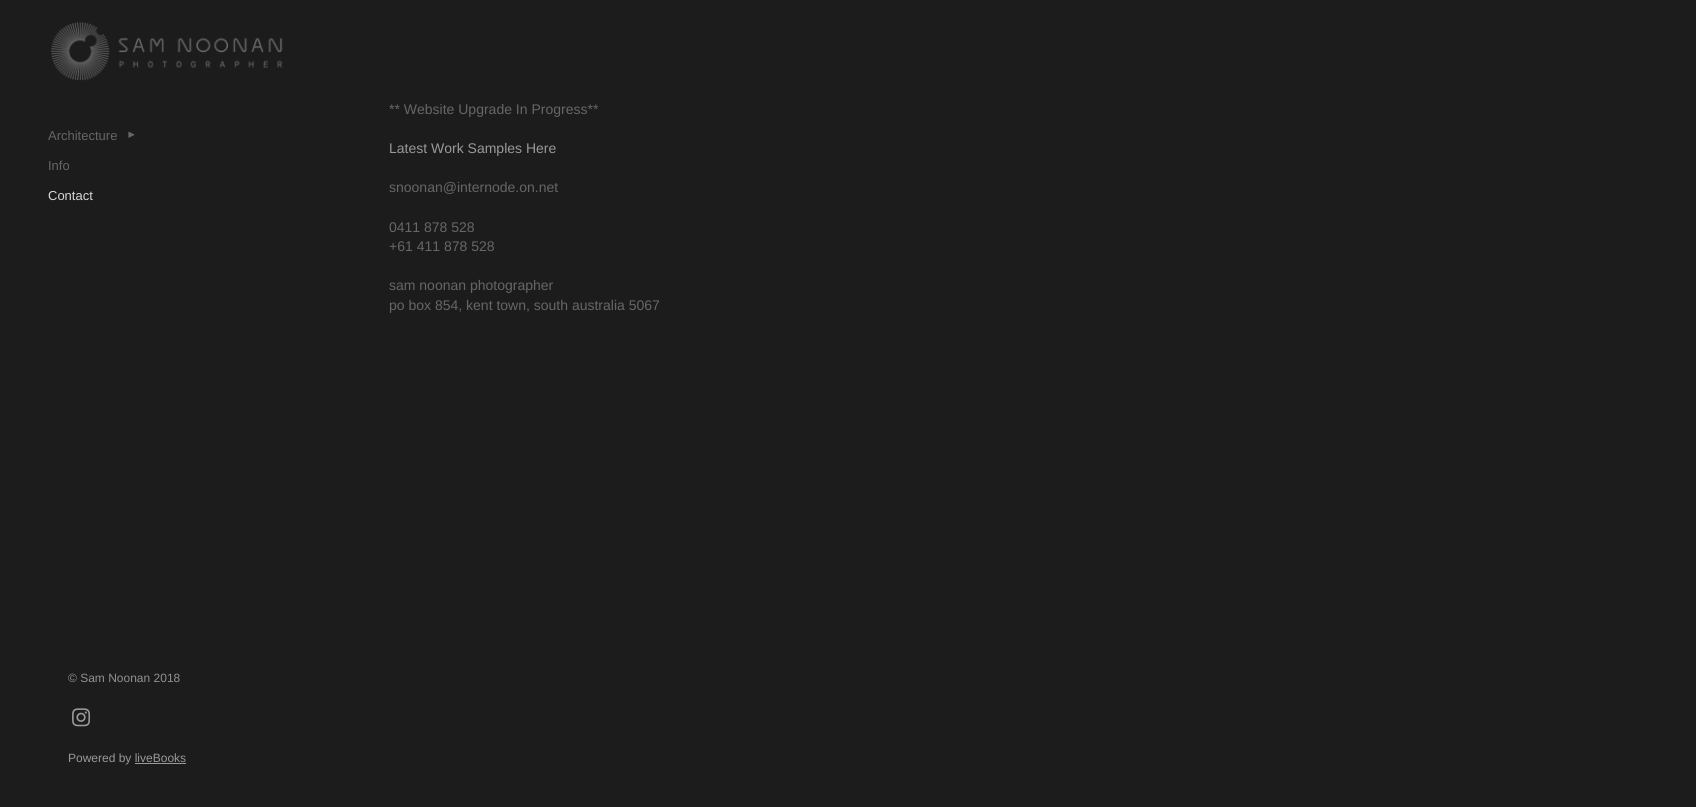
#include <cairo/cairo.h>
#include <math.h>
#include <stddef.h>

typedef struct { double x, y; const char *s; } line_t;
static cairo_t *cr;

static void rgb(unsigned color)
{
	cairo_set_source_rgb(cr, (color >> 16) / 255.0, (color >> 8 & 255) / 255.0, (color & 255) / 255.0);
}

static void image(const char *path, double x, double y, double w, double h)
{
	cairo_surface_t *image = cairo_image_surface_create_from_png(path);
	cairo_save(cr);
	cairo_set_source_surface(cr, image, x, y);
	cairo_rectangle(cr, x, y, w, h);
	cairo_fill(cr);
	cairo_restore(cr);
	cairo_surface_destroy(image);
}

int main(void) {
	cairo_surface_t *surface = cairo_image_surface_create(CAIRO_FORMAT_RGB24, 1696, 807);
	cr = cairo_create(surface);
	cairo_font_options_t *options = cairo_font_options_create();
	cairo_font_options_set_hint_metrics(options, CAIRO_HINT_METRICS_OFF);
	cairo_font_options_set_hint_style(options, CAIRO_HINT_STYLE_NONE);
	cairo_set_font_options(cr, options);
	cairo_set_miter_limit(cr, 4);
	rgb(0x1c1c1c);
	cairo_paint(cr);
	image("img/1.png", 51, 22, 232, 59);
	image("img/2.png", 72, 708, 18, 19);
	cairo_select_font_face(cr, "Liberation Sans", CAIRO_FONT_SLANT_NORMAL, CAIRO_FONT_WEIGHT_NORMAL);
	cairo_set_font_size(cr, 13);
	rgb(0x666666);
	cairo_move_to(cr, 48, 140);
	cairo_show_text(cr, "Architecture");
	cairo_select_font_face(cr, "DejaVu Sans", CAIRO_FONT_SLANT_NORMAL, CAIRO_FONT_WEIGHT_NORMAL);
	cairo_save(cr);
	cairo_translate(cr, 135, 138);
	cairo_rotate(cr, -90 * M_PI / 180);
	cairo_move_to(cr, 0, 0);
	cairo_show_text(cr, "▾");
	cairo_restore(cr);
	cairo_select_font_face(cr, "Liberation Sans", CAIRO_FONT_SLANT_NORMAL, CAIRO_FONT_WEIGHT_NORMAL);
	cairo_move_to(cr, 48, 170);
	cairo_show_text(cr, "Info");
	rgb(0xd7d7d7);
	cairo_move_to(cr, 48, 200);
	cairo_show_text(cr, "Contact");
	cairo_set_font_size(cr, 14);
	rgb(0x666666);
	cairo_move_to(cr, 389, 114);
	cairo_show_text(cr, "** Website Upgrade In Progress**");
	rgb(0x999999);
	cairo_move_to(cr, 389, 153);
	cairo_show_text(cr, "Latest Work Samples Here");
	rgb(0x666666);
	{
		static const line_t items[] = {
			{389, 192, "snoonan@internode.on.net"},
			{389, 232, "0411 878 528"},
			{389, 251, "+61 411 878 528"},
			{389, 290, "sam noonan photographer"},
			{389, 310, "po box 854, kent town, south australia 5067"},
		};
		for (size_t i = 0; i < sizeof items / sizeof *items; i++) {
			cairo_move_to(cr, items[i].x, items[i].y);
			cairo_show_text(cr, items[i].s);
		}
	}
	cairo_set_font_size(cr, 12);
	rgb(0x909090);
	cairo_move_to(cr, 68, 682);
	cairo_show_text(cr, "© Sam Noonan 2018");
	rgb(0x999999);
	cairo_move_to(cr, 68, 762);
	cairo_show_text(cr, "Powered by liveBooks");
	rgb(0x9a9a9a);
	cairo_rectangle(cr, 135, 763, 51, 1);
	cairo_fill(cr);
	cairo_surface_write_to_png(surface, "page.png");
	cairo_font_options_destroy(options);
	cairo_destroy(cr);
	cairo_surface_destroy(surface);
	return 0;
}
